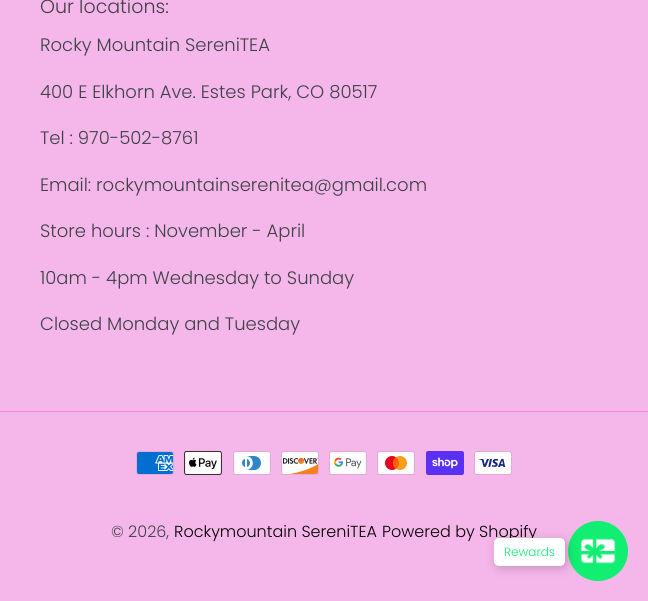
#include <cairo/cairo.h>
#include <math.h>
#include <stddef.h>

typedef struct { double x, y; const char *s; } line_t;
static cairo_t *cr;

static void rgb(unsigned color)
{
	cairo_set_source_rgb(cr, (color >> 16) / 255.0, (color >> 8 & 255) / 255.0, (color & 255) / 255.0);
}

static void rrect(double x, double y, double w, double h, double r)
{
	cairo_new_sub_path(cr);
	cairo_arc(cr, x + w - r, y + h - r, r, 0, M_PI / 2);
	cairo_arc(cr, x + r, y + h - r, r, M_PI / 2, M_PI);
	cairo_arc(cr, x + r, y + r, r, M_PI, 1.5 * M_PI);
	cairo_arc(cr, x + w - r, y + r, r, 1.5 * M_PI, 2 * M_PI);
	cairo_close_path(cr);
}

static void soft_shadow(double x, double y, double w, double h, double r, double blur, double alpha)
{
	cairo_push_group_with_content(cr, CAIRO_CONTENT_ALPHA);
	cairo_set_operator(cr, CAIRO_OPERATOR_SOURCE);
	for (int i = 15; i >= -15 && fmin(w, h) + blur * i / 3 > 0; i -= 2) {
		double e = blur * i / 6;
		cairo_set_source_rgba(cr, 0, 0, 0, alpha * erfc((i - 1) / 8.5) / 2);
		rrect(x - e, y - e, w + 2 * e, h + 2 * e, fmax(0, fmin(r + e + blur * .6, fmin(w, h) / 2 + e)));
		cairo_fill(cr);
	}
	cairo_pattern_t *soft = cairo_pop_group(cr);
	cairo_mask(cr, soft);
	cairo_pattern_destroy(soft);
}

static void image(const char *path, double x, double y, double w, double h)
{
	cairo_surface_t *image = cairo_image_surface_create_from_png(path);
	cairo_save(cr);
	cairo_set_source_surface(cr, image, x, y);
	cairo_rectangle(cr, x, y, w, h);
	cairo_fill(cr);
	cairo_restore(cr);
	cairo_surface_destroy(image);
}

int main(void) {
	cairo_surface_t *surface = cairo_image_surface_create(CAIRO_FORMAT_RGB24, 648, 601);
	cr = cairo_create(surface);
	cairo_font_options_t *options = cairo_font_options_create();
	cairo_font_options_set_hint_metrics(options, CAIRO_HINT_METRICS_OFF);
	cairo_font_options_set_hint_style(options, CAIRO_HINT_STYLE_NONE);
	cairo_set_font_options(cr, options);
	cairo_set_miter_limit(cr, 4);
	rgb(0xf5b6ea);
	cairo_paint(cr);
	rgb(0xef89dd);
	cairo_rectangle(cr, 0, 411, 648, 1);
	cairo_fill(cr);
	image("img/1.png", 136, 451, 38, 24);
	image("img/2.png", 184, 451, 38, 24);
	image("img/3.png", 233, 451, 38, 24);
	image("img/4.png", 281, 451, 38, 24);
	image("img/5.png", 329, 451, 38, 24);
	image("img/6.png", 377, 451, 38, 24);
	image("img/7.png", 426, 451, 38, 24);
	image("img/8.png", 474, 451, 38, 24);
	rgb(0x11ee71);
	cairo_arc(cr, 598, 551, 30, 0, 2 * M_PI);
	cairo_fill(cr);
	image("img/9.png", 580, 538, 36, 26);
	rgb(0x000000);
	soft_shadow(496, 540, 71, 28, 5, 5, 0.2);
	cairo_select_font_face(cr, "Poppins Light", CAIRO_FONT_SLANT_NORMAL, CAIRO_FONT_WEIGHT_NORMAL);
	cairo_set_font_size(cr, 19);
	rgb(0x3d4246);
	cairo_move_to(cr, 40, 13);
	cairo_show_text(cr, "Our locations:");
	cairo_set_font_size(cr, 18);
	{
		static const line_t items[] = {
			{40, 51, "Rocky Mountain SereniTEA"},
			{40, 98, "400 E Elkhorn Ave. Estes Park, CO 80517"},
			{40, 144, "Tel : 970-502-8761"},
			{40, 191, "Email: rockymountainserenitea@gmail.com"},
			{40, 237, "Store hours : November - April"},
			{40, 284, "10am - 4pm Wednesday to Sunday"},
			{40, 330, "Closed Monday and Tuesday"},
		};
		for (size_t i = 0; i < sizeof items / sizeof *items; i++) {
			cairo_move_to(cr, items[i].x, items[i].y);
			cairo_show_text(cr, items[i].s);
		}
	}
	cairo_set_font_size(cr, 16);
	cairo_move_to(cr, 111, 537);
	cairo_show_text(cr, "© 2026,");
	rgb(0x000000);
	cairo_move_to(cr, 174, 537);
	cairo_show_text(cr, "Rockymountain SereniTEA");
	cairo_move_to(cr, 382, 537);
	cairo_show_text(cr, "Powered by Shopify");
	rgb(0xffffff);
	rrect(494, 538, 71, 28, 5);
	cairo_fill(cr);
	cairo_set_font_size(cr, 12);
	rgb(0x11ee71);
	cairo_move_to(cr, 504, 556);
	cairo_show_text(cr, "Rewards");
	cairo_surface_write_to_png(surface, "page.png");
	cairo_font_options_destroy(options);
	cairo_destroy(cr);
	cairo_surface_destroy(surface);
	return 0;
}
